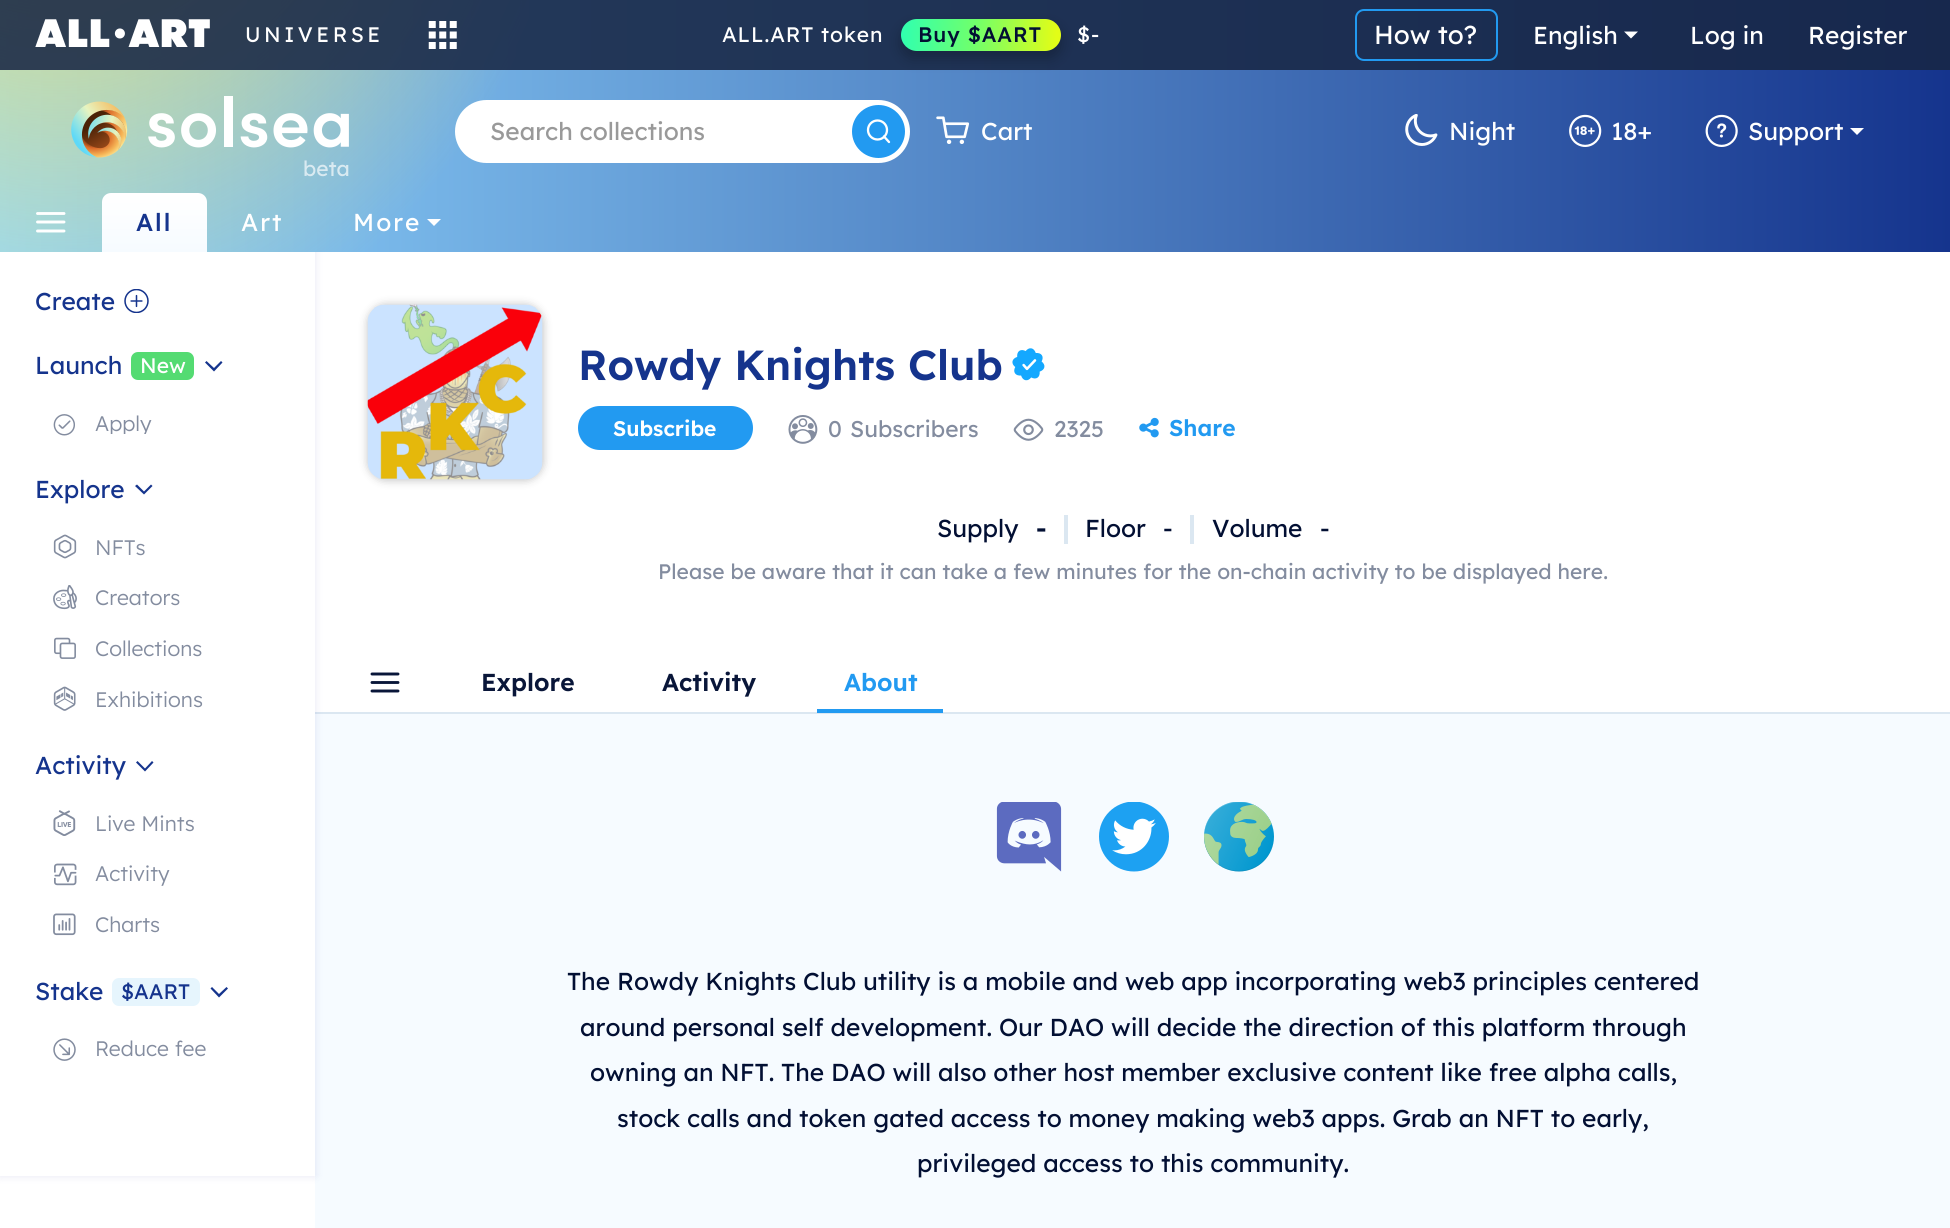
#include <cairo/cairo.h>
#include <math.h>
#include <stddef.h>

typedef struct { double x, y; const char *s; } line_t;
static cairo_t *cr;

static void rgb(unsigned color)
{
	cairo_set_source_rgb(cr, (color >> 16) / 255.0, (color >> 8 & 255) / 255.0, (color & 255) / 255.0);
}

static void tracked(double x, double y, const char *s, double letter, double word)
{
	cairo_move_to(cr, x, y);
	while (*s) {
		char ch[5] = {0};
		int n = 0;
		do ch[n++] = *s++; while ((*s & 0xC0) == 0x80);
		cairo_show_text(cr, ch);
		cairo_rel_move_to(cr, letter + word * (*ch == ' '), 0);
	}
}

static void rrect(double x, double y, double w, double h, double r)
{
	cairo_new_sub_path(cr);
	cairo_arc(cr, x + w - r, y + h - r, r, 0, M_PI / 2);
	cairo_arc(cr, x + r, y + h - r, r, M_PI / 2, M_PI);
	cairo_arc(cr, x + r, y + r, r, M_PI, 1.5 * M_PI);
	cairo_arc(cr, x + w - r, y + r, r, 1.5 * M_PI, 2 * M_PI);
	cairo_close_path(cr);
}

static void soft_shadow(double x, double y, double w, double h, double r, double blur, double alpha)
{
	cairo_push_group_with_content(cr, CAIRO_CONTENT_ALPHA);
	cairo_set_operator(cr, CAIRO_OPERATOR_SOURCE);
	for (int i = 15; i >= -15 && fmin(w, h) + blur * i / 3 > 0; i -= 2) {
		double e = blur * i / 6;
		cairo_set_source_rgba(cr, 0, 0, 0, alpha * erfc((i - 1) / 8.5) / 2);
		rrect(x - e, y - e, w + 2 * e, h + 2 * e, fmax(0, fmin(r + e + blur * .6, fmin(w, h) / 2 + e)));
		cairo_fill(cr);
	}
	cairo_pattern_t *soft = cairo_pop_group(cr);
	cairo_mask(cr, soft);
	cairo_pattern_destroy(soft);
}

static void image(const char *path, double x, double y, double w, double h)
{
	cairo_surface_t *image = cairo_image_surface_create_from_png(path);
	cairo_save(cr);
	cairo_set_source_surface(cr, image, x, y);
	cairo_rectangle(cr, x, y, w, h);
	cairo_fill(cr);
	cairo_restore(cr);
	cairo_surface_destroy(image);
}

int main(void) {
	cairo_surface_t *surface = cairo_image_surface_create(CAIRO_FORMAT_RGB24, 1950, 1228);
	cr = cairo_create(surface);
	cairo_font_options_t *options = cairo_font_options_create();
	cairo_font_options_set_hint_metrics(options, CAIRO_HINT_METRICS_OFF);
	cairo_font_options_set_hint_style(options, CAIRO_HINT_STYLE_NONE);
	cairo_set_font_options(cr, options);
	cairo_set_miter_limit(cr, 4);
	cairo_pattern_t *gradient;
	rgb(0xffffff);
	cairo_paint(cr);
	rgb(0xf6fbff);
	cairo_rectangle(cr, 315, 714, 1635, 514);
	cairo_fill(cr);
	rgb(0xdbe7f1);
	cairo_rectangle(cr, 315, 712, 1635, 2);
	cairo_fill(cr);
	cairo_save(cr);
	cairo_set_fill_rule(cr, CAIRO_FILL_RULE_EVEN_ODD);
	cairo_new_path(cr);
	cairo_move_to(cr, 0, 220);
	cairo_line_to(cr, 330, 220);
	cairo_line_to(cr, 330, 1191);
	cairo_line_to(cr, 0, 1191);
	cairo_close_path(cr);
	cairo_move_to(cr, 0, 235);
	cairo_line_to(cr, 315, 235);
	cairo_line_to(cr, 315, 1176);
	cairo_line_to(cr, 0, 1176);
	cairo_close_path(cr);
	cairo_clip(cr);
	rgb(0x000080);
	soft_shadow(0, 235, 315, 941, 0, 4.5, 0.1);
	cairo_restore(cr);
	gradient = cairo_pattern_create_linear(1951, 126, 0, 126);
	cairo_pattern_add_color_stop_rgba(gradient, 0, 0.082, 0.204, 0.553, 1);
	cairo_pattern_add_color_stop_rgba(gradient, 1, 0.565, 0.843, 1, 1);
	cairo_set_source(cr, gradient);
	cairo_pattern_destroy(gradient);
	cairo_rectangle(cr, 0, 0, 1950, 252);
	cairo_fill(cr);
	gradient = cairo_pattern_create_radial(0, 0, 0, 0, 0, 1);
	cairo_pattern_set_matrix(gradient, &(cairo_matrix_t){1.0 / 546, 0, 0, 1.0 / 706, -1.0 * 59 / 546, -1.0 * -328 / 706});
	cairo_pattern_add_color_stop_rgba(gradient, 0, 1, 0.89, 0.322, 1);
	cairo_pattern_add_color_stop_rgba(gradient, 1, 1, 0.89, 0.322, 0);
	cairo_set_source(cr, gradient);
	cairo_pattern_destroy(gradient);
	cairo_rectangle(cr, 0, 0, 529, 252);
	cairo_fill(cr);
	cairo_set_source_rgba(cr, 0.094, 0.149, 0.267, 0.87);
	cairo_rectangle(cr, 0, 0, 1950, 70);
	cairo_fill(cr);
	image("img/1.png", 35, 19, 175, 28);
	image("img/2.png", 428, 21, 29, 28);
	rgb(0x000000);
	soft_shadow(901, 26, 160, 32, 16, 7, 0.25);
	gradient = cairo_pattern_create_linear(900, 30, 1061, 39);
	cairo_pattern_add_color_stop_rgba(gradient, 0, 0.184, 1, 0.694, 1);
	cairo_pattern_add_color_stop_rgba(gradient, 0.47, 0.443, 1, 0.416, 1);
	cairo_pattern_add_color_stop_rgba(gradient, 0.97, 0.886, 0.992, 0.09, 1);
	cairo_set_source(cr, gradient);
	cairo_pattern_destroy(gradient);
	rrect(901, 19, 160, 32, 16);
	cairo_fill(cr);
	rrect(1356, 10, 141, 50, 8);
	rgb(0x229af1);
	cairo_stroke(cr);
	rgb(0xffffff);
	cairo_new_path(cr);
	cairo_move_to(cr, 1624, 31.5);
	cairo_line_to(cr, 1638, 31.5);
	cairo_line_to(cr, 1631, 38.5);
	cairo_close_path(cr);
	cairo_fill(cr);
	rrect(455, 100, 455, 63, 31.5);
	cairo_fill(cr);
	rgb(0x229af1);
	cairo_arc(cr, 878.5, 131.5, 26.5, 0, 2 * M_PI);
	cairo_fill(cr);
	cairo_arc(cr, 877.5, 130, 9.5, 0, 2 * M_PI);
	rgb(0xffffff);
	cairo_set_line_width(cr, 2.3);
	cairo_stroke(cr);
	cairo_new_path(cr);
	cairo_move_to(cr, 889, 142);
	cairo_line_to(cr, 884, 136.5);
	cairo_set_line_cap(cr, CAIRO_LINE_CAP_ROUND);
	cairo_set_line_join(cr, CAIRO_LINE_JOIN_ROUND);
	cairo_stroke(cr);
	image("img/3.png", 71, 96, 278, 62);
	image("img/4.png", 936, 116, 34, 28);
	image("img/5.png", 1405, 114, 33, 32);
	image("img/6.png", 1569, 114, 33, 33);
	image("img/7.png", 1705, 114, 33, 33);
	cairo_new_path(cr);
	cairo_move_to(cr, 1850, 128);
	cairo_line_to(cr, 1864, 128);
	cairo_line_to(cr, 1857, 135);
	cairo_close_path(cr);
	cairo_fill(cr);
	cairo_new_path(cr);
	cairo_move_to(cr, 37.5, 222);
	cairo_line_to(cr, 64, 222);
	cairo_move_to(cr, 37.5, 213.5);
	cairo_line_to(cr, 64, 213.5);
	cairo_move_to(cr, 37.5, 231);
	cairo_line_to(cr, 64, 231);
	cairo_set_line_width(cr, 2.9);
	cairo_stroke(cr);
	gradient = cairo_pattern_create_linear(154, 252, 154, 193);
	cairo_pattern_add_color_stop_rgba(gradient, 0, 0.965, 0.984, 1, 1);
	cairo_pattern_add_color_stop_rgba(gradient, 1, 1, 1, 1, 1);
	cairo_set_source(cr, gradient);
	cairo_pattern_destroy(gradient);
	cairo_new_path(cr);
	cairo_move_to(cr, 111, 193);
	cairo_line_to(cr, 198, 193);
	cairo_curve_to(cr, 203, 193, 207, 197, 207, 202);
	cairo_line_to(cr, 207, 252);
	cairo_line_to(cr, 102, 252);
	cairo_line_to(cr, 102, 202);
	cairo_curve_to(cr, 102, 197, 106, 193, 111, 193);
	cairo_close_path(cr);
	cairo_fill(cr);
	rgb(0xffffff);
	cairo_new_path(cr);
	cairo_move_to(cr, 427, 219);
	cairo_line_to(cr, 441, 219);
	cairo_line_to(cr, 434, 226);
	cairo_close_path(cr);
	cairo_fill(cr);
	image("img/8.png", 124, 289, 25, 24);
	rgb(0x54db72);
	rrect(131, 352, 63, 28, 7);
	cairo_fill(cr);
	rgb(0x15348d);
	cairo_new_path(cr);
	cairo_move_to(cr, 206.5, 361);
	cairo_line_to(cr, 205, 362.5);
	cairo_line_to(cr, 214, 371.5);
	cairo_line_to(cr, 222.5, 362.5);
	cairo_line_to(cr, 221, 361);
	cairo_line_to(cr, 214, 368);
	cairo_close_path(cr);
	cairo_fill(cr);
	image("img/9.png", 53, 414, 22, 22);
	cairo_new_path(cr);
	cairo_move_to(cr, 137, 484.5);
	cairo_line_to(cr, 135, 486);
	cairo_line_to(cr, 144, 494.5);
	cairo_line_to(cr, 152.5, 486);
	cairo_line_to(cr, 151, 484.5);
	cairo_line_to(cr, 144, 491.5);
	cairo_close_path(cr);
	cairo_fill(cr);
	image("img/10.png", 53, 534, 24, 25);
	image("img/11.png", 53, 585, 24, 25);
	image("img/12.png", 54, 637, 22, 22);
	image("img/13.png", 53, 686, 23, 25);
	cairo_new_path(cr);
	cairo_move_to(cr, 137.5, 761);
	cairo_line_to(cr, 136, 762.5);
	cairo_line_to(cr, 145, 771.5);
	cairo_line_to(cr, 153.5, 762.5);
	cairo_line_to(cr, 152, 761);
	cairo_line_to(cr, 145, 768.5);
	cairo_close_path(cr);
	cairo_fill(cr);
	image("img/14.png", 53, 810, 23, 26);
	image("img/15.png", 54, 863, 23, 23);
	image("img/16.png", 53, 913, 23, 23);
	rgb(0xe6f5fd);
	rrect(112, 978, 88, 28, 7);
	cairo_fill(cr);
	rgb(0x15348d);
	cairo_new_path(cr);
	cairo_move_to(cr, 212, 987);
	cairo_line_to(cr, 210.5, 988.5);
	cairo_line_to(cr, 219, 997.5);
	cairo_line_to(cr, 228, 988.5);
	cairo_line_to(cr, 226.5, 987);
	cairo_line_to(cr, 219, 994);
	cairo_close_path(cr);
	cairo_fill(cr);
	image("img/17.png", 53, 1038, 23, 23);
	rgb(0x000000);
	soft_shadow(368, 305, 175, 175, 18, 4.5, 0.25);
	image("img/18.png", 367, 304, 176, 176);
	image("img/19.png", 1012, 348, 33, 33);
	rgb(0x229af1);
	rrect(578, 406, 175, 44, 22);
	cairo_fill(cr);
	image("img/20.png", 788, 415, 30, 29);
	image("img/21.png", 1013, 418, 31, 23);
	image("img/22.png", 1139, 417, 20, 21);
	rgb(0xdbe7f1);
	cairo_rectangle(cr, 1064, 515, 4, 29);
	cairo_fill(cr);
	cairo_rectangle(cr, 1190, 515, 4, 29);
	cairo_fill(cr);
	cairo_new_path(cr);
	cairo_move_to(cr, 372, 682.5);
	cairo_line_to(cr, 398, 682.5);
	cairo_move_to(cr, 372, 674);
	cairo_line_to(cr, 398, 674);
	cairo_move_to(cr, 372, 691);
	cairo_line_to(cr, 398, 691);
	rgb(0x091639);
	cairo_stroke(cr);
	rgb(0x229af1);
	cairo_rectangle(cr, 817, 709, 126, 4);
	cairo_fill(cr);
	image("img/23.png", 996, 802, 66, 70);
	image("img/24.png", 1099, 802, 70, 70);
	image("img/25.png", 1204, 802, 70, 70);
	cairo_select_font_face(cr, "Lexend", CAIRO_FONT_SLANT_NORMAL, CAIRO_FONT_WEIGHT_NORMAL);
	cairo_set_font_size(cr, 21);
	rgb(0xffffff);
	tracked(245, 42, "UNIVERSE", 3.5, 0);
	tracked(722, 42, "ALL.ART token", 0.9, 0);
	cairo_select_font_face(cr, "Lexend Medium", CAIRO_FONT_SLANT_NORMAL, CAIRO_FONT_WEIGHT_NORMAL);
	rgb(0x020f33);
	tracked(918, 42, "Buy $AART", 0.9, 0);
	cairo_select_font_face(cr, "Lexend", CAIRO_FONT_SLANT_NORMAL, CAIRO_FONT_WEIGHT_NORMAL);
	rgb(0xffffff);
	tracked(1077, 42, "$-", 0.9, 0);
	cairo_set_font_size(cr, 26);
	cairo_move_to(cr, 1374, 44);
	cairo_show_text(cr, "How to?");
	cairo_set_font_size(cr, 24.5);
	{
		static const line_t items[] = {
			{1533, 44, "English"},
			{1690, 44, "Log in"},
			{1808, 44, "Register"},
		};
		for (size_t i = 0; i < sizeof items / sizeof *items; i++) {
			cairo_move_to(cr, items[i].x, items[i].y);
			cairo_show_text(cr, items[i].s);
		}
	}
	rgb(0x999999);
	cairo_move_to(cr, 490, 140);
	cairo_show_text(cr, "Search collections");
	cairo_set_font_size(cr, 21);
	rgb(0xd9eaf1);
	cairo_move_to(cr, 303, 176);
	cairo_show_text(cr, "beta");
	cairo_set_font_size(cr, 24.5);
	rgb(0xffffff);
	{
		static const line_t items[] = {
			{981, 140, "Cart"},
			{1449, 140, "Night"},
			{1611, 140, "18+"},
			{1748, 140, "Support"},
		};
		for (size_t i = 0; i < sizeof items / sizeof *items; i++) {
			cairo_move_to(cr, items[i].x, items[i].y);
			cairo_show_text(cr, items[i].s);
		}
	}
	cairo_select_font_face(cr, "Lexend Medium", CAIRO_FONT_SLANT_NORMAL, CAIRO_FONT_WEIGHT_NORMAL);
	rgb(0x15348d);
	tracked(136, 231, "All", 2, 0);
	cairo_select_font_face(cr, "Lexend", CAIRO_FONT_SLANT_NORMAL, CAIRO_FONT_WEIGHT_NORMAL);
	rgb(0xffffff);
	tracked(241, 231, "Art", 2, 0);
	tracked(353, 231, "More", 2, 0);
	rgb(0x15348d);
	cairo_move_to(cr, 35, 310);
	cairo_show_text(cr, "Create");
	cairo_move_to(cr, 35, 374);
	cairo_show_text(cr, "Launch");
	cairo_set_font_size(cr, 21);
	rgb(0xffffff);
	cairo_move_to(cr, 140, 373);
	cairo_show_text(cr, "New");
	cairo_save(cr);
	cairo_rectangle(cr, 95, 413, 220, 21);
	cairo_clip(cr);
	cairo_select_font_face(cr, "Lexend Light", CAIRO_FONT_SLANT_NORMAL, CAIRO_FONT_WEIGHT_NORMAL);
	rgb(0x838c9f);
	cairo_move_to(cr, 95, 431);
	cairo_show_text(cr, "Apply");
	cairo_restore(cr);
	cairo_set_font_size(cr, 24.5);
	rgb(0x15348d);
	cairo_move_to(cr, 35, 498);
	cairo_show_text(cr, "Explore");
	cairo_select_font_face(cr, "Lexend Light", CAIRO_FONT_SLANT_NORMAL, CAIRO_FONT_WEIGHT_NORMAL);
	cairo_set_font_size(cr, 21);
	rgb(0x838c9f);
	{
		static const line_t items[] = {
			{95, 555, "NFTs"},
			{95, 605, "Creators"},
			{95, 656, "Collections"},
			{95, 707, "Exhibitions"},
		};
		for (size_t i = 0; i < sizeof items / sizeof *items; i++) {
			cairo_move_to(cr, items[i].x, items[i].y);
			cairo_show_text(cr, items[i].s);
		}
	}
	cairo_select_font_face(cr, "Lexend", CAIRO_FONT_SLANT_NORMAL, CAIRO_FONT_WEIGHT_NORMAL);
	cairo_set_font_size(cr, 24.5);
	rgb(0x15348d);
	cairo_move_to(cr, 35, 774);
	cairo_show_text(cr, "Activity");
	cairo_select_font_face(cr, "Lexend Light", CAIRO_FONT_SLANT_NORMAL, CAIRO_FONT_WEIGHT_NORMAL);
	cairo_set_font_size(cr, 21);
	rgb(0x838c9f);
	{
		static const line_t items[] = {
			{95, 831, "Live Mints"},
			{95, 881, "Activity"},
			{95, 932, "Charts"},
		};
		for (size_t i = 0; i < sizeof items / sizeof *items; i++) {
			cairo_move_to(cr, items[i].x, items[i].y);
			cairo_show_text(cr, items[i].s);
		}
	}
	cairo_select_font_face(cr, "Lexend", CAIRO_FONT_SLANT_NORMAL, CAIRO_FONT_WEIGHT_NORMAL);
	cairo_set_font_size(cr, 24.5);
	rgb(0x15348d);
	cairo_move_to(cr, 35, 1000);
	cairo_show_text(cr, "Stake");
	cairo_set_font_size(cr, 21);
	cairo_move_to(cr, 121, 999);
	cairo_show_text(cr, "$AART");
	cairo_select_font_face(cr, "Lexend Light", CAIRO_FONT_SLANT_NORMAL, CAIRO_FONT_WEIGHT_NORMAL);
	rgb(0x838c9f);
	cairo_move_to(cr, 95, 1056);
	cairo_show_text(cr, "Reduce fee");
	cairo_select_font_face(cr, "Lexend SemiBold", CAIRO_FONT_SLANT_NORMAL, CAIRO_FONT_WEIGHT_NORMAL);
	cairo_set_font_size(cr, 42);
	rgb(0x15348d);
	cairo_move_to(cr, 578, 380);
	cairo_show_text(cr, "Rowdy Knights Club");
	cairo_set_font_size(cr, 21);
	rgb(0xffffff);
	cairo_move_to(cr, 613, 436);
	cairo_show_text(cr, "Subscribe");
	cairo_select_font_face(cr, "Lexend", CAIRO_FONT_SLANT_NORMAL, CAIRO_FONT_WEIGHT_NORMAL);
	cairo_set_font_size(cr, 22.75);
	rgb(0x838c9f);
	{
		static const line_t items[] = {
			{828, 437, "0"},
			{850, 437, "Subscribers"},
			{1054, 437, "2325"},
		};
		for (size_t i = 0; i < sizeof items / sizeof *items; i++) {
			cairo_move_to(cr, items[i].x, items[i].y);
			cairo_show_text(cr, items[i].s);
		}
	}
	cairo_select_font_face(cr, "Lexend SemiBold", CAIRO_FONT_SLANT_NORMAL, CAIRO_FONT_WEIGHT_NORMAL);
	rgb(0x229af1);
	cairo_move_to(cr, 1169, 436);
	cairo_show_text(cr, "Share");
	cairo_select_font_face(cr, "Lexend", CAIRO_FONT_SLANT_NORMAL, CAIRO_FONT_WEIGHT_NORMAL);
	cairo_set_font_size(cr, 24.5);
	rgb(0x020f33);
	cairo_move_to(cr, 937, 537);
	cairo_show_text(cr, "Supply");
	cairo_select_font_face(cr, "Lexend SemiBold", CAIRO_FONT_SLANT_NORMAL, CAIRO_FONT_WEIGHT_NORMAL);
	cairo_move_to(cr, 1036, 537);
	cairo_show_text(cr, "-");
	cairo_select_font_face(cr, "Lexend", CAIRO_FONT_SLANT_NORMAL, CAIRO_FONT_WEIGHT_NORMAL);
	{
		static const line_t items[] = {
			{1085, 537, "Floor"},
			{1163, 537, "-"},
			{1212, 537, "Volume"},
			{1320, 537, "-"},
		};
		for (size_t i = 0; i < sizeof items / sizeof *items; i++) {
			cairo_move_to(cr, items[i].x, items[i].y);
			cairo_show_text(cr, items[i].s);
		}
	}
	cairo_set_font_size(cr, 21);
	rgb(0x838c9f);
	cairo_move_to(cr, 658, 579);
	cairo_show_text(cr, "Please be aware that it can take a few minutes for the on-chain activity to be displayed here.");
	cairo_select_font_face(cr, "Lexend SemiBold", CAIRO_FONT_SLANT_NORMAL, CAIRO_FONT_WEIGHT_NORMAL);
	cairo_set_font_size(cr, 24.5);
	rgb(0x091639);
	cairo_move_to(cr, 481, 691);
	cairo_show_text(cr, "Explore");
	cairo_move_to(cr, 662, 691);
	cairo_show_text(cr, "Activity");
	rgb(0x229af1);
	cairo_move_to(cr, 844, 691);
	cairo_show_text(cr, "About");
	cairo_select_font_face(cr, "Lexend", CAIRO_FONT_SLANT_NORMAL, CAIRO_FONT_WEIGHT_NORMAL);
	rgb(0x020f33);
	{
		static const line_t items[] = {
			{567, 990, "The Rowdy Knights Club utility is a mobile and web app incorporating web3 principles centered"},
			{580, 1036, "around personal self development. Our DAO will decide the direction of this platform through"},
			{590, 1081, "owning an NFT. The DAO will also other host member exclusive content like free alpha calls,"},
			{617, 1127, "stock calls and token gated access to money making web3 apps. Grab an NFT to early,"},
			{917, 1172, "privileged access to this community."},
		};
		for (size_t i = 0; i < sizeof items / sizeof *items; i++) {
			cairo_move_to(cr, items[i].x, items[i].y);
			cairo_show_text(cr, items[i].s);
		}
	}
	cairo_surface_write_to_png(surface, "page.png");
	cairo_font_options_destroy(options);
	cairo_destroy(cr);
	cairo_surface_destroy(surface);
	return 0;
}
